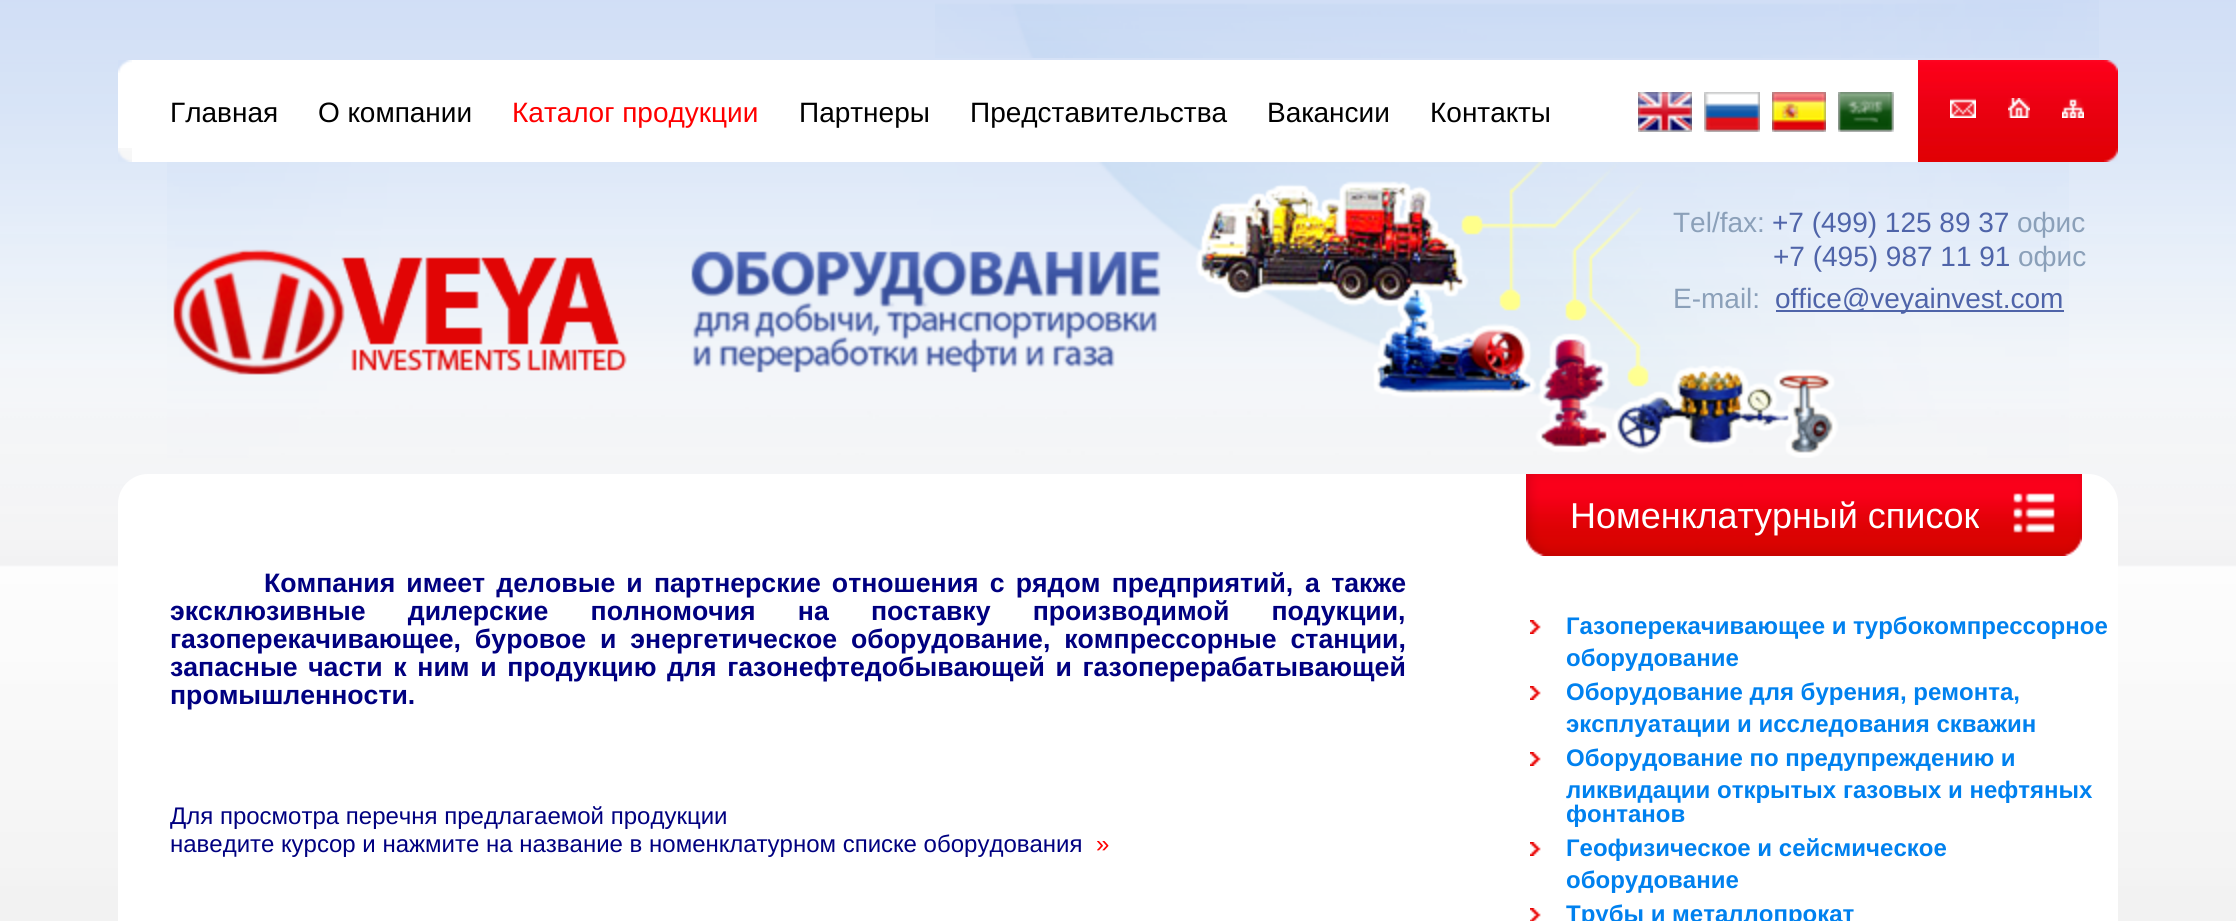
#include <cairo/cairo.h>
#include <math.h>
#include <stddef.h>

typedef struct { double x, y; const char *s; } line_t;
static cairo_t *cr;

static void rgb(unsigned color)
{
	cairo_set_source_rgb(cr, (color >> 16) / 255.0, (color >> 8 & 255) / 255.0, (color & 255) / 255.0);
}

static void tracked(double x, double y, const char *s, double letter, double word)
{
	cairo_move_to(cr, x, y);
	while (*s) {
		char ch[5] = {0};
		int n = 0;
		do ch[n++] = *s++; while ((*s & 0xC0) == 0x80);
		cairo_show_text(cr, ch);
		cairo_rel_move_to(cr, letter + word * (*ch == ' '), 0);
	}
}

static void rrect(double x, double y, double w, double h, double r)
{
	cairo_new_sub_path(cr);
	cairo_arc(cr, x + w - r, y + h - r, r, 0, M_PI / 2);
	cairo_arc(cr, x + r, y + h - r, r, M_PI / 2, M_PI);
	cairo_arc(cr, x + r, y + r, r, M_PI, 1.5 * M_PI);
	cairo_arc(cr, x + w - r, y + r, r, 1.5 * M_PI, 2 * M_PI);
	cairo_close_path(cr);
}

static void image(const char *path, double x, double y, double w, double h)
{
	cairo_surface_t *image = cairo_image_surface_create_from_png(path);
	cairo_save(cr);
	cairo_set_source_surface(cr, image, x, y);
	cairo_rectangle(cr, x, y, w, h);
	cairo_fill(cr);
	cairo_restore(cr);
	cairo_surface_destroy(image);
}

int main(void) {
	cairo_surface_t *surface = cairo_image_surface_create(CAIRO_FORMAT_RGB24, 2236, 921);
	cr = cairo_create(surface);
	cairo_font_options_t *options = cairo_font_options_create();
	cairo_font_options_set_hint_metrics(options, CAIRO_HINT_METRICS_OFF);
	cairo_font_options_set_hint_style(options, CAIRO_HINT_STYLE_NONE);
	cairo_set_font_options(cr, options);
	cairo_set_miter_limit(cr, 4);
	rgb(0xffffff);
	cairo_paint(cr);
	image("img/1.png", 0, 0, 2236, 921);
	image("img/2.png", 935, 0, 1164, 58);
	rgb(0xffffff);
	cairo_rectangle(cr, 118, 60, 1800, 102);
	cairo_fill(cr);
	image("img/3.png", 118, 60, 14, 13);
	image("img/4.png", 1918, 60, 200, 102);
	image("img/5.png", 1950, 98, 26, 20);
	image("img/6.png", 2008, 98, 22, 20);
	image("img/7.png", 2062, 98, 22, 20);
	image("img/8.png", 2104, 60, 14, 13);
	image("img/9.png", 1638, 92, 54, 40);
	image("img/10.png", 1704, 92, 56, 40);
	image("img/11.png", 1772, 92, 54, 40);
	image("img/12.png", 1838, 92, 56, 40);
	image("img/13.png", 118, 148, 14, 14);
	image("img/14.png", 2104, 148, 14, 14);
	image("img/15.png", 167, 162, 1902, 296);
	rgb(0x4f64a9);
	cairo_rectangle(cr, 1776, 310, 288, 2);
	cairo_fill(cr);
	rgb(0xffffff);
	rrect(118, 474, 2000, 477, 30);
	cairo_fill(cr);
	image("img/16.png", 1526, 474, 556, 82);
	image("img/17.png", 1530, 620, 11, 14);
	image("img/17.png", 1530, 686, 11, 14);
	image("img/17.png", 1530, 752, 11, 14);
	image("img/17.png", 1530, 842, 11, 14);
	image("img/18.png", 1530, 908, 11, 13);
	cairo_select_font_face(cr, "Liberation Sans", CAIRO_FONT_SLANT_NORMAL, CAIRO_FONT_WEIGHT_NORMAL);
	cairo_set_font_size(cr, 28);
	rgb(0x000000);
	cairo_move_to(cr, 170, 122);
	cairo_show_text(cr, "Главная");
	cairo_move_to(cr, 318, 122);
	cairo_show_text(cr, "О компании");
	rgb(0xff0000);
	cairo_move_to(cr, 512, 122);
	cairo_show_text(cr, "Каталог продукции");
	rgb(0x000000);
	{
		static const line_t items[] = {
			{799, 122, "Партнеры"},
			{970, 122, "Представительства"},
			{1267, 122, "Вакансии"},
			{1430, 122, "Контакты"},
		};
		for (size_t i = 0; i < sizeof items / sizeof *items; i++) {
			cairo_move_to(cr, items[i].x, items[i].y);
			cairo_show_text(cr, items[i].s);
		}
	}
	rgb(0x8ba0b9);
	cairo_move_to(cr, 1673, 232);
	cairo_show_text(cr, "Tel/fax:");
	rgb(0x4f64a9);
	cairo_move_to(cr, 1772, 232);
	cairo_show_text(cr, "+7 (499) 125 89 37");
	rgb(0x8ba0b9);
	cairo_move_to(cr, 2017, 232);
	cairo_show_text(cr, "офис");
	rgb(0x4f64a9);
	cairo_move_to(cr, 1773, 266);
	cairo_show_text(cr, "+7 (495) 987 11 91");
	rgb(0x8ba0b9);
	cairo_move_to(cr, 2018, 266);
	cairo_show_text(cr, "офис");
	cairo_move_to(cr, 1673, 308);
	cairo_show_text(cr, "E-mail:");
	rgb(0x4f64a9);
	cairo_move_to(cr, 1775, 308);
	cairo_show_text(cr, "office@veyainvest.com");
	cairo_select_font_face(cr, "Liberation Sans", CAIRO_FONT_SLANT_NORMAL, CAIRO_FONT_WEIGHT_BOLD);
	cairo_set_font_size(cr, 26.65);
	rgb(0x000080);
	tracked(264, 592, "Компания имеет деловые и партнерские отношения с рядом предприятий,", 0, 3.75);
	tracked(1305, 592, "а также", 0, 4);
	tracked(170, 620, "эксклюзивные дилерские полномочия на поставку производимой подукции,", 0, 34.75);
	tracked(170, 648, "газоперекачивающее, буровое и энергетическое оборудование, компрессорные станции,", 0, 6.5);
	tracked(170, 676, "запасные части к ним и продукцию для газонефтедобывающей и газоперерабатывающей", 0, 3.25);
	cairo_move_to(cr, 170, 704);
	cairo_show_text(cr, "промышленности.");
	cairo_select_font_face(cr, "Liberation Sans", CAIRO_FONT_SLANT_NORMAL, CAIRO_FONT_WEIGHT_NORMAL);
	cairo_set_font_size(cr, 24);
	cairo_move_to(cr, 170, 824);
	cairo_show_text(cr, "Для просмотра перечня предлагаемой продукции");
	cairo_move_to(cr, 170, 852);
	cairo_show_text(cr, "наведите курсор и нажмите на название в номенклатурном списке оборудования");
	rgb(0xff0000);
	cairo_move_to(cr, 1096, 852);
	cairo_show_text(cr, "»");
	cairo_set_font_size(cr, 36);
	rgb(0xffffff);
	cairo_move_to(cr, 1570, 528);
	cairo_show_text(cr, "Номенклатурный список");
	cairo_select_font_face(cr, "Liberation Sans", CAIRO_FONT_SLANT_NORMAL, CAIRO_FONT_WEIGHT_BOLD);
	cairo_set_font_size(cr, 24);
	rgb(0x0081ef);
	{
		static const line_t items[] = {
			{1566, 634, "Газоперекачивающее и турбокомпрессорное"},
			{1566, 666, "оборудование"},
			{1566, 700, "Оборудование для бурения, ремонта,"},
			{1566, 732, "эксплуатации и исследования скважин"},
			{1566, 766, "Оборудование по предупреждению и"},
			{1566, 798, "ликвидации открытых газовых и нефтяных"},
			{1566, 822, "фонтанов"},
			{1566, 856, "Геофизическое и сейсмическое"},
			{1566, 888, "оборудование"},
			{1566, 922, "Трубы и металлопрокат"},
		};
		for (size_t i = 0; i < sizeof items / sizeof *items; i++) {
			cairo_move_to(cr, items[i].x, items[i].y);
			cairo_show_text(cr, items[i].s);
		}
	}
	cairo_surface_write_to_png(surface, "page.png");
	cairo_font_options_destroy(options);
	cairo_destroy(cr);
	cairo_surface_destroy(surface);
	return 0;
}
